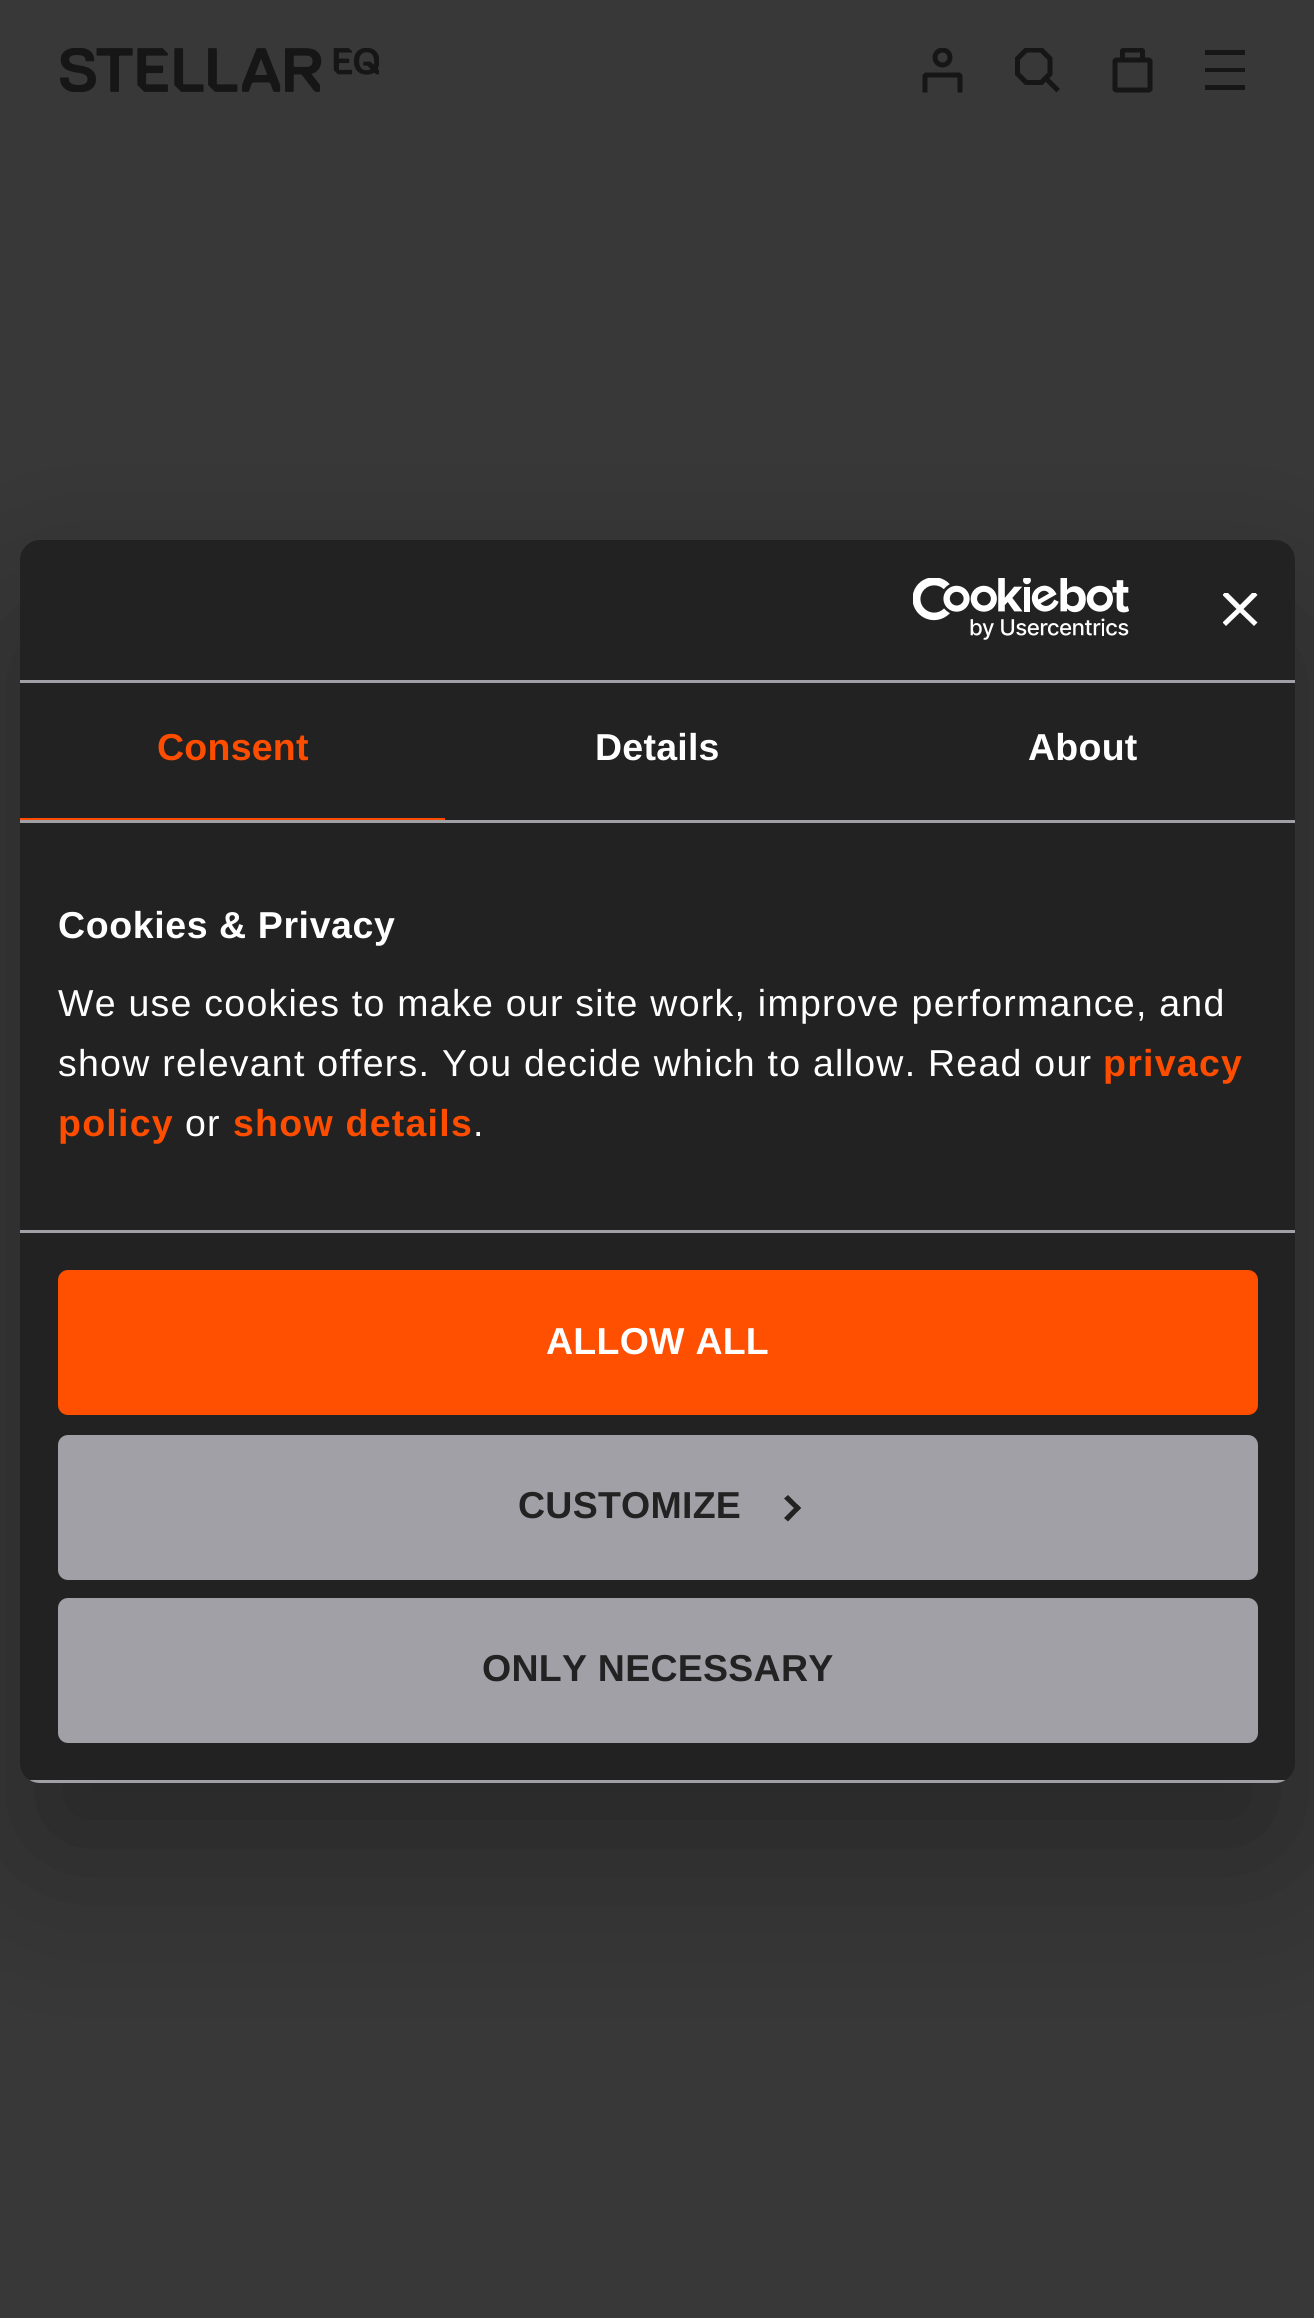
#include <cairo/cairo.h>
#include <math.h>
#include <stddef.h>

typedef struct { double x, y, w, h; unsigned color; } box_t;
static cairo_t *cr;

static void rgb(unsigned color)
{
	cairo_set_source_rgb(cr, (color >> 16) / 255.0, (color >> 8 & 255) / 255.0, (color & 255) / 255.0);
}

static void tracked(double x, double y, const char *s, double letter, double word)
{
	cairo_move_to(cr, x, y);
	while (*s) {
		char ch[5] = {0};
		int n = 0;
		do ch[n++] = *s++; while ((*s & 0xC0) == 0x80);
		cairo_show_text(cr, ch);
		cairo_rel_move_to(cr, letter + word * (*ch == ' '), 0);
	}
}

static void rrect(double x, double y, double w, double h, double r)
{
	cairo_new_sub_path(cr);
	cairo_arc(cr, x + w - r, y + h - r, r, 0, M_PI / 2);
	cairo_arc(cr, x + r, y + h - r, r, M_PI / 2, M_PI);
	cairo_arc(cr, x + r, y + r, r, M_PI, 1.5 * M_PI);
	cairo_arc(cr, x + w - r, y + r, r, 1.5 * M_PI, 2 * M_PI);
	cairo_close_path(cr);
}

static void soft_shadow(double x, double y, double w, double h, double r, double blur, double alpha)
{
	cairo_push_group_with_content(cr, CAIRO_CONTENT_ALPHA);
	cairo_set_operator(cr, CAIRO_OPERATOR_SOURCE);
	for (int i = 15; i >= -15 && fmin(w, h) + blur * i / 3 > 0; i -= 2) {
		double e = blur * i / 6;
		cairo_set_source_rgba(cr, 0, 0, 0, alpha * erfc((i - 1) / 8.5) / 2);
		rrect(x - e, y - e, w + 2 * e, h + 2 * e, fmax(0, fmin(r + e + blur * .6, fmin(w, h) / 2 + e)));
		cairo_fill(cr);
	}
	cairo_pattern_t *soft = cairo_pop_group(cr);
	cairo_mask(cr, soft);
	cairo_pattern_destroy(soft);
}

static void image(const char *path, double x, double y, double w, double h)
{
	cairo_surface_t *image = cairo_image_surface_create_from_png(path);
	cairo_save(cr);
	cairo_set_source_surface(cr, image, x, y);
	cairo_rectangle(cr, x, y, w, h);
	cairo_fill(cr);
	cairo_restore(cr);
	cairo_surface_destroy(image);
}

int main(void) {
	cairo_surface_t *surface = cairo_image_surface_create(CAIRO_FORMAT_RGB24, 1314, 2318);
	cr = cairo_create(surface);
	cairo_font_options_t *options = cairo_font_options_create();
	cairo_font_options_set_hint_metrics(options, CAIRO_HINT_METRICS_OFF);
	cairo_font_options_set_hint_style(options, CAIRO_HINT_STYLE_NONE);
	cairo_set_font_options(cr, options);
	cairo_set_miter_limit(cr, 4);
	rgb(0x383838);
	cairo_paint(cr);
	image("img/1.png", 60, 48, 319, 44);
	image("img/2.png", 922, 48, 41, 45);
	image("img/3.png", 1015, 48, 45, 45);
	image("img/4.png", 1112, 48, 41, 45);
	{
		static const box_t items[] = {
			{1205, 68, 40, 4, 0x161616},
			{1205, 50, 40, 5, 0x161616},
			{1205, 85, 40, 5, 0x161616},
		};
		for (size_t i = 0; i < sizeof items / sizeof *items; i++) {
			rgb(items[i].color);
			cairo_rectangle(cr, items[i].x, items[i].y, items[i].w, items[i].h);
			cairo_fill(cr);
		}
	}
	rgb(0x000000);
	soft_shadow(20, 620, 1275, 1243, 20, 85, 0.3);
	rgb(0x222222);
	rrect(20, 540, 1275, 1243, 20);
	cairo_fill(cr);
	rgb(0xa1a0a6);
	cairo_rectangle(cr, 20, 680, 1275, 3);
	cairo_fill(cr);
	image("img/5.png", 913, 578, 216, 62);
	cairo_save(cr);
	cairo_rectangle(cr, 1223, 593, 35, 35);
	cairo_clip(cr);
	rgb(0xffffff);
	cairo_new_path(cr);
	cairo_move_to(cr, 1257.5, 595);
	cairo_line_to(cr, 1254, 591);
	cairo_line_to(cr, 1240, 605);
	cairo_line_to(cr, 1226, 591);
	cairo_line_to(cr, 1222.5, 595);
	cairo_line_to(cr, 1236.5, 609);
	cairo_line_to(cr, 1222.5, 622.5);
	cairo_line_to(cr, 1226, 626);
	cairo_line_to(cr, 1240, 612.5);
	cairo_line_to(cr, 1254, 626);
	cairo_line_to(cr, 1257.5, 622.5);
	cairo_line_to(cr, 1243.5, 609);
	cairo_close_path(cr);
	cairo_fill(cr);
	cairo_restore(cr);
	{
		static const box_t items[] = {
			{20, 820, 1275, 3, 0xa1a0a6},
			{20, 818, 425, 2, 0xff4d00},
			{20, 1230, 1275, 3, 0xa1a0a6},
		};
		for (size_t i = 0; i < sizeof items / sizeof *items; i++) {
			rgb(items[i].color);
			cairo_rectangle(cr, items[i].x, items[i].y, items[i].w, items[i].h);
			cairo_fill(cr);
		}
	}
	cairo_save(cr);
	rrect(20, 540, 1275, 1243, 20);
	cairo_clip(cr);
	cairo_rectangle(cr, 29, 1780, 1257, 3);
	cairo_fill(cr);
	cairo_restore(cr);
	rgb(0xff4f00);
	rrect(60.5, 1272.5, 1195, 140, 7.5);
	cairo_fill_preserve(cr);
	cairo_set_line_width(cr, 5);
	cairo_stroke(cr);
	rgb(0xa1a0a6);
	rrect(60.5, 1437.5, 1195, 140, 7.5);
	cairo_fill_preserve(cr);
	cairo_stroke(cr);
	rgb(0x222222);
	cairo_new_path(cr);
	cairo_move_to(cr, 788, 1495);
	cairo_line_to(cr, 801, 1508);
	cairo_line_to(cr, 797.5, 1511.5);
	cairo_line_to(cr, 784, 1498.5);
	cairo_close_path(cr);
	cairo_fill(cr);
	cairo_new_path(cr);
	cairo_move_to(cr, 797.5, 1504.5);
	cairo_line_to(cr, 801, 1508);
	cairo_line_to(cr, 788, 1521.5);
	cairo_line_to(cr, 784, 1518);
	cairo_close_path(cr);
	cairo_fill(cr);
	rgb(0xa1a0a6);
	rrect(60.5, 1600.5, 1195, 140, 7.5);
	cairo_fill_preserve(cr);
	cairo_stroke(cr);
	cairo_select_font_face(cr, "Liberation Sans", CAIRO_FONT_SLANT_NORMAL, CAIRO_FONT_WEIGHT_BOLD);
	cairo_set_font_size(cr, 37.5);
	rgb(0xff4d00);
	tracked(157, 760, "Consent", 0.25, 0);
	rgb(0xffffff);
	tracked(595, 760, "Details", 0.25, 0);
	tracked(1028, 760, "About", 0.25, 0);
	tracked(58, 938, "Cookies & Privacy", 0.6, 0);
	cairo_select_font_face(cr, "Liberation Sans", CAIRO_FONT_SLANT_NORMAL, CAIRO_FONT_WEIGHT_NORMAL);
	tracked(58, 1016, "We use cookies to make our site work, improve performance, and", 1.25, 0);
	tracked(58, 1076, "show relevant offers. You decide which to allow. Read our", 1.25, 0);
	cairo_select_font_face(cr, "Liberation Sans", CAIRO_FONT_SLANT_NORMAL, CAIRO_FONT_WEIGHT_BOLD);
	rgb(0xff4d00);
	tracked(1103, 1076, "privacy", 1.25, 0);
	tracked(58, 1136, "policy", 1.25, 0);
	cairo_select_font_face(cr, "Liberation Sans", CAIRO_FONT_SLANT_NORMAL, CAIRO_FONT_WEIGHT_NORMAL);
	rgb(0xffffff);
	tracked(185, 1136, "or", 1.25, 0);
	cairo_select_font_face(cr, "Liberation Sans", CAIRO_FONT_SLANT_NORMAL, CAIRO_FONT_WEIGHT_BOLD);
	rgb(0xff4d00);
	tracked(233, 1136, "show details", 1.25, 0);
	cairo_select_font_face(cr, "Liberation Sans", CAIRO_FONT_SLANT_NORMAL, CAIRO_FONT_WEIGHT_NORMAL);
	rgb(0xffffff);
	tracked(473, 1136, ".", 1.25, 0);
	cairo_select_font_face(cr, "Liberation Sans", CAIRO_FONT_SLANT_NORMAL, CAIRO_FONT_WEIGHT_BOLD);
	tracked(546, 1354, "ALLOW ALL", 0.25, 0);
	rgb(0x222222);
	tracked(518, 1518, "CUSTOMIZE", 0.25, 0);
	tracked(482, 1681, "ONLY NECESSARY", 0.25, 0);
	cairo_surface_write_to_png(surface, "page.png");
	cairo_font_options_destroy(options);
	cairo_destroy(cr);
	cairo_surface_destroy(surface);
	return 0;
}
